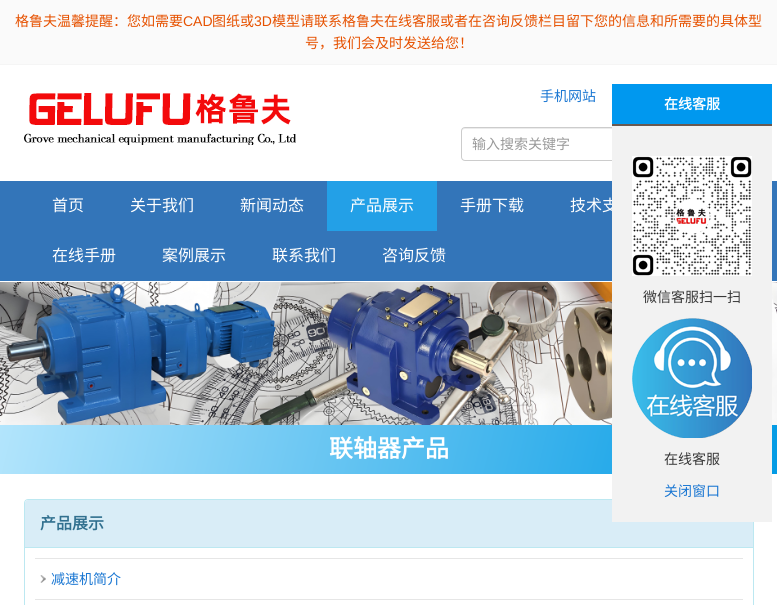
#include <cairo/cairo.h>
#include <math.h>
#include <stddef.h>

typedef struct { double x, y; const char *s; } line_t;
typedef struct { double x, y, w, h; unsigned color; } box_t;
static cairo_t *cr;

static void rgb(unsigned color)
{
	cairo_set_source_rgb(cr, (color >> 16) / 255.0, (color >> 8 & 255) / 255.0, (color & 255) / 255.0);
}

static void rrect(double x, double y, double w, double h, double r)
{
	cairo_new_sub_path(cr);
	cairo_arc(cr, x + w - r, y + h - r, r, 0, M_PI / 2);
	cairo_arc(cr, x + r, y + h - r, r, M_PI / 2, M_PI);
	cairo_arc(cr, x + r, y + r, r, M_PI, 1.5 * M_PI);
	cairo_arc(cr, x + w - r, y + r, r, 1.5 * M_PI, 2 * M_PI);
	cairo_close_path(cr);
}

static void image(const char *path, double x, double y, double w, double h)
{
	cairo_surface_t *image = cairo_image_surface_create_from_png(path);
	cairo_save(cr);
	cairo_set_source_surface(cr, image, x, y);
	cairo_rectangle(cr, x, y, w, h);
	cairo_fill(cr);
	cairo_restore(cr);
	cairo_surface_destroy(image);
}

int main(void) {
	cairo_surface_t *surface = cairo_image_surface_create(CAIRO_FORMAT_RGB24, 777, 605);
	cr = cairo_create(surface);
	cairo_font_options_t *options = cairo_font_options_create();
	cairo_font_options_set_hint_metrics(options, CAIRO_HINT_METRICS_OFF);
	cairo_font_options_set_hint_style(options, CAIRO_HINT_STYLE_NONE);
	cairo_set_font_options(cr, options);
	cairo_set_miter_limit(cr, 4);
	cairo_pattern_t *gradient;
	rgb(0xffffff);
	cairo_paint(cr);
	rgb(0xfafafa);
	cairo_rectangle(cr, 0, 0, 777, 64);
	cairo_fill(cr);
	rgb(0xf5f5f5);
	cairo_rectangle(cr, 0, 64, 777, 1);
	cairo_fill(cr);
	image("img/1.png", 24, 93, 272, 52);
	rgb(0xececec);
	cairo_new_path(cr);
	cairo_move_to(cr, 465, 129);
	cairo_line_to(cr, 750, 129);
	cairo_curve_to(cr, 752, 129, 753, 130, 753, 132);
	cairo_curve_to(cr, 753, 130, 752, 128, 750, 128);
	cairo_line_to(cr, 465, 128);
	cairo_curve_to(cr, 463, 128, 462, 130, 462, 132);
	cairo_curve_to(cr, 462, 130, 463, 129, 465, 129);
	cairo_close_path(cr);
	cairo_fill(cr);
	rrect(461.5, 127.5, 292, 33, 3.5);
	rgb(0xcccccc);
	cairo_set_line_width(cr, 1);
	cairo_stroke(cr);
	{
		static const box_t items[] = {
			{612, 84, 160, 40, 0x0098ef},
			{612, 124, 160, 2, 0x695950},
			{0, 181, 777, 100, 0x3375b9},
			{327, 181, 110, 50, 0x23a0e7},
		};
		for (size_t i = 0; i < sizeof items / sizeof *items; i++) {
			rgb(items[i].color);
			cairo_rectangle(cr, items[i].x, items[i].y, items[i].w, items[i].h);
			cairo_fill(cr);
		}
	}
	image("img/4.png", 0, 282, 777, 143);
	gradient = cairo_pattern_create_linear(761, 537, 16, 352);
	cairo_pattern_add_color_stop_rgba(gradient, 0, 0.012, 0.608, 0.898, 1);
	cairo_pattern_add_color_stop_rgba(gradient, 1, 0.702, 0.898, 0.988, 1);
	cairo_set_source(cr, gradient);
	cairo_pattern_destroy(gradient);
	cairo_rectangle(cr, 0, 425, 777, 49);
	cairo_fill(cr);
	rrect(24.5, 499.5, 729, 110, 3.5);
	rgb(0xbce8f1);
	cairo_stroke(cr);
	rgb(0xd9edf7);
	cairo_new_path(cr);
	cairo_move_to(cr, 28, 500);
	cairo_line_to(cr, 750, 500);
	cairo_curve_to(cr, 751.5, 500, 753, 501.5, 753, 503);
	cairo_line_to(cr, 753, 548);
	cairo_line_to(cr, 25, 548);
	cairo_line_to(cr, 25, 503);
	cairo_curve_to(cr, 25, 501.5, 26.5, 500, 28, 500);
	cairo_close_path(cr);
	cairo_fill(cr);
	rgb(0xbce8f1);
	cairo_rectangle(cr, 25, 547, 728, 1);
	cairo_fill(cr);
	image("img/5.png", 40, 575, 6, 8);
	rgb(0xe6e6e6);
	cairo_rectangle(cr, 35, 558, 708, 1);
	cairo_fill(cr);
	cairo_rectangle(cr, 35, 599, 708, 1);
	cairo_fill(cr);
	cairo_select_font_face(cr, "Noto Sans CJK SC", CAIRO_FONT_SLANT_NORMAL, CAIRO_FONT_WEIGHT_NORMAL);
	cairo_set_font_size(cr, 14);
	rgb(0xe65100);
	cairo_move_to(cr, 15, 26);
	cairo_show_text(cr, "格鲁夫温馨提醒：您如需要");
	cairo_select_font_face(cr, "Liberation Sans", CAIRO_FONT_SLANT_NORMAL, CAIRO_FONT_WEIGHT_NORMAL);
	cairo_move_to(cr, 183, 26);
	cairo_show_text(cr, "CAD");
	cairo_select_font_face(cr, "Noto Sans CJK SC", CAIRO_FONT_SLANT_NORMAL, CAIRO_FONT_WEIGHT_NORMAL);
	cairo_move_to(cr, 212, 26);
	cairo_show_text(cr, "图纸或");
	cairo_select_font_face(cr, "Liberation Sans", CAIRO_FONT_SLANT_NORMAL, CAIRO_FONT_WEIGHT_NORMAL);
	cairo_move_to(cr, 254, 26);
	cairo_show_text(cr, "3D");
	cairo_select_font_face(cr, "Noto Sans CJK SC", CAIRO_FONT_SLANT_NORMAL, CAIRO_FONT_WEIGHT_NORMAL);
	cairo_move_to(cr, 272, 26);
	cairo_show_text(cr, "模型请联系格鲁夫在线客服或者在咨询反馈栏目留下您的信息和所需要的具体型");
	cairo_move_to(cr, 305, 48);
	cairo_show_text(cr, "号，我们会及时发送给您！");
	rgb(0x1976d2);
	cairo_move_to(cr, 540, 101);
	cairo_show_text(cr, "手机网站");
	rgb(0x999999);
	cairo_move_to(cr, 472, 149);
	cairo_show_text(cr, "输入搜索关键字");
	cairo_select_font_face(cr, "Noto Sans CJK SC", CAIRO_FONT_SLANT_NORMAL, CAIRO_FONT_WEIGHT_BOLD);
	rgb(0xffffff);
	cairo_move_to(cr, 664, 109);
	cairo_show_text(cr, "在线客服");
	cairo_select_font_face(cr, "Noto Sans CJK SC", CAIRO_FONT_SLANT_NORMAL, CAIRO_FONT_WEIGHT_NORMAL);
	cairo_set_font_size(cr, 16);
	{
		static const line_t items[] = {
			{52, 211, "首页"},
			{130, 211, "关于我们"},
			{240, 211, "新闻动态"},
			{350, 211, "产品展示"},
			{460, 211, "手册下载"},
			{570, 211, "技术支"},
		};
		for (size_t i = 0; i < sizeof items / sizeof *items; i++) {
			cairo_move_to(cr, items[i].x, items[i].y);
			cairo_show_text(cr, items[i].s);
		}
	}
	rgb(0xf2f2f2);
	cairo_rectangle(cr, 612, 126, 160, 396);
	cairo_fill(cr);
	cairo_set_font_size(cr, 14);
	rgb(0x1976d2);
	cairo_move_to(cr, 664, 496);
	cairo_show_text(cr, "关闭窗口");
	rgb(0x383838);
	cairo_move_to(cr, 664, 464);
	cairo_show_text(cr, "在线客服");
	image("img/3.png", 632, 318, 120, 120);
	cairo_move_to(cr, 643, 302);
	cairo_show_text(cr, "微信客服扫一扫");
	image("img/2.png", 632, 156, 120, 120);
	cairo_set_font_size(cr, 16);
	rgb(0xffffff);
	{
		static const line_t items[] = {
			{52, 261, "在线手册"},
			{162, 261, "案例展示"},
			{272, 261, "联系我们"},
			{382, 261, "咨询反馈"},
		};
		for (size_t i = 0; i < sizeof items / sizeof *items; i++) {
			cairo_move_to(cr, items[i].x, items[i].y);
			cairo_show_text(cr, items[i].s);
		}
	}
	cairo_select_font_face(cr, "Noto Sans CJK SC", CAIRO_FONT_SLANT_NORMAL, CAIRO_FONT_WEIGHT_BOLD);
	cairo_set_font_size(cr, 24);
	cairo_move_to(cr, 329, 457);
	cairo_show_text(cr, "联轴器产品");
	cairo_set_font_size(cr, 16);
	rgb(0x31708f);
	cairo_move_to(cr, 40, 529);
	cairo_show_text(cr, "产品展示");
	cairo_select_font_face(cr, "Noto Sans CJK SC", CAIRO_FONT_SLANT_NORMAL, CAIRO_FONT_WEIGHT_NORMAL);
	cairo_set_font_size(cr, 14);
	rgb(0x1976d2);
	cairo_move_to(cr, 51, 584);
	cairo_show_text(cr, "减速机简介");
	cairo_surface_write_to_png(surface, "page.png");
	cairo_font_options_destroy(options);
	cairo_destroy(cr);
	cairo_surface_destroy(surface);
	return 0;
}
